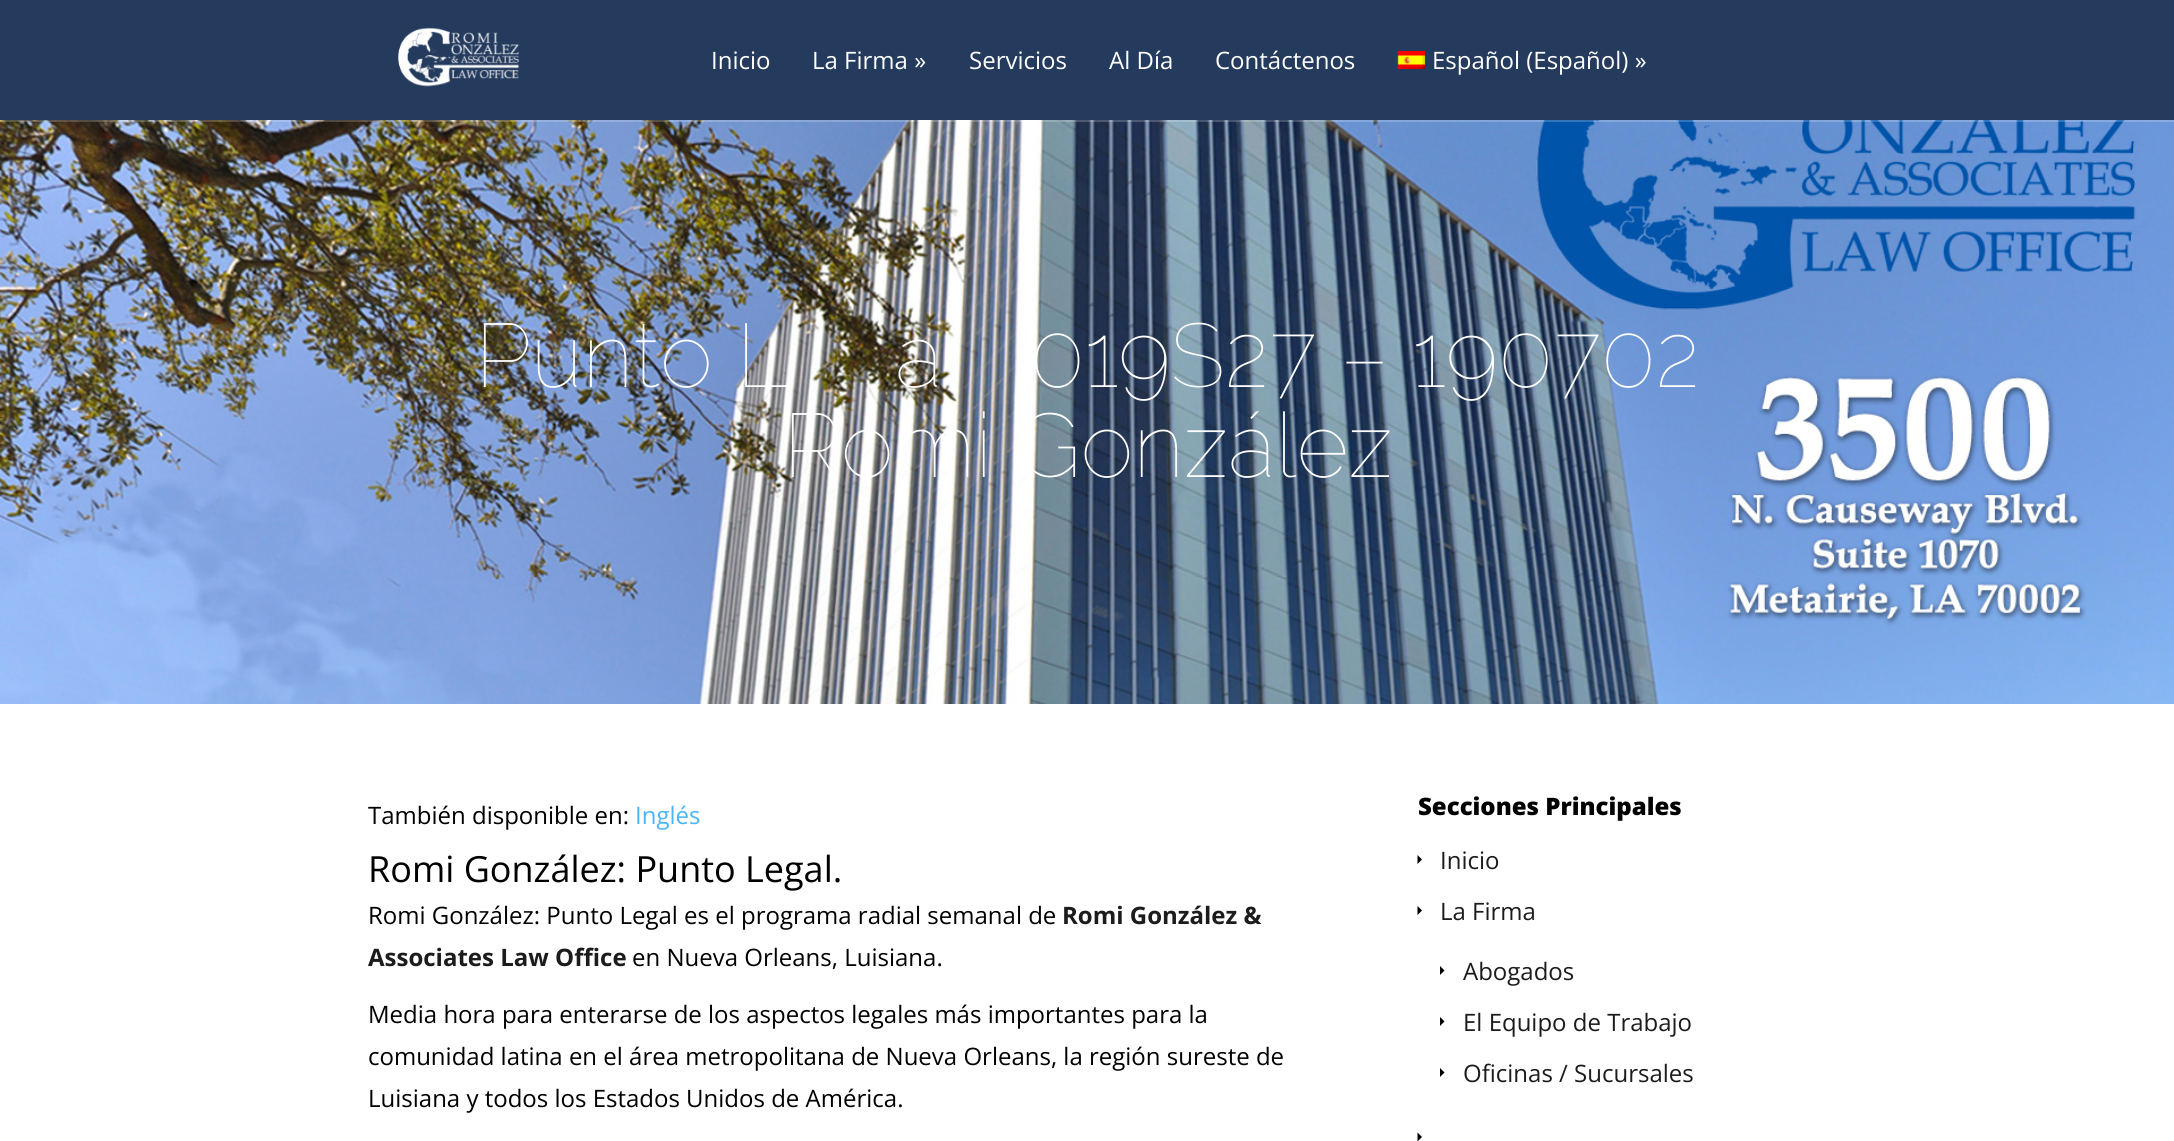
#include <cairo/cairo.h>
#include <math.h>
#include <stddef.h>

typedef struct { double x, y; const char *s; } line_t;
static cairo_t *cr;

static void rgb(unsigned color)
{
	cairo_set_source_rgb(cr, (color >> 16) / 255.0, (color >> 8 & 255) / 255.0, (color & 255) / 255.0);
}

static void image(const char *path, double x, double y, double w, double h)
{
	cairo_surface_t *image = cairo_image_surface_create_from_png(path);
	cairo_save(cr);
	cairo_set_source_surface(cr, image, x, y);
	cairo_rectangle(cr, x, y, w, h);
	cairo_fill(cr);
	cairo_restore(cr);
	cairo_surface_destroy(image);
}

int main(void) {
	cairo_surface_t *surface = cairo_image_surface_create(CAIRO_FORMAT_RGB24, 2174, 1141);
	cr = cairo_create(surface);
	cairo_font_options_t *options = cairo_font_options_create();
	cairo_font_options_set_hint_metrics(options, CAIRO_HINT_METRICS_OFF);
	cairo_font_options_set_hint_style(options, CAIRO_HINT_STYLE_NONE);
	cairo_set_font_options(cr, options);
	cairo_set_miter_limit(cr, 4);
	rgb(0xffffff);
	cairo_paint(cr);
	image("img/3.png", 0, 120, 2174, 584);
	cairo_set_source_rgba(cr, 1, 1, 1, 0.2);
	cairo_rectangle(cr, 0, 120, 2174, 2);
	cairo_fill(cr);
	rgb(0x243b5e);
	cairo_rectangle(cr, 0, 0, 2174, 120);
	cairo_fill(cr);
	image("img/1.png", 398, 27, 122, 60);
	image("img/2.png", 1397, 51, 28, 18);
	rgb(0x000000);
	cairo_new_path(cr);
	cairo_move_to(cr, 1417.5, 864);
	cairo_line_to(cr, 1417.5, 855);
	cairo_line_to(cr, 1422, 859.5);
	cairo_close_path(cr);
	cairo_fill(cr);
	cairo_new_path(cr);
	cairo_move_to(cr, 1417.5, 915);
	cairo_line_to(cr, 1417.5, 906);
	cairo_line_to(cr, 1422, 910.5);
	cairo_close_path(cr);
	cairo_fill(cr);
	cairo_new_path(cr);
	cairo_move_to(cr, 1440, 975);
	cairo_line_to(cr, 1440, 966);
	cairo_line_to(cr, 1444.5, 970.5);
	cairo_close_path(cr);
	cairo_fill(cr);
	cairo_new_path(cr);
	cairo_move_to(cr, 1440, 1026);
	cairo_line_to(cr, 1440, 1017);
	cairo_line_to(cr, 1444.5, 1021.5);
	cairo_close_path(cr);
	cairo_fill(cr);
	cairo_new_path(cr);
	cairo_move_to(cr, 1440, 1077);
	cairo_line_to(cr, 1440, 1068);
	cairo_line_to(cr, 1444.5, 1072.5);
	cairo_close_path(cr);
	cairo_fill(cr);
	cairo_new_path(cr);
	cairo_move_to(cr, 1417.5, 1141.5);
	cairo_line_to(cr, 1417.5, 1132.5);
	cairo_line_to(cr, 1422, 1137);
	cairo_close_path(cr);
	cairo_fill(cr);
	cairo_select_font_face(cr, "Open Sans", CAIRO_FONT_SLANT_NORMAL, CAIRO_FONT_WEIGHT_NORMAL);
	cairo_set_font_size(cr, 24);
	rgb(0xffffff);
	{
		static const line_t items[] = {
			{711, 69, "Inicio"},
			{812, 69, "La Firma »"},
			{969, 69, "Servicios"},
			{1109, 69, "Al Día"},
			{1215, 69, "Contáctenos"},
			{1432, 69, "Español (Español) »"},
		};
		for (size_t i = 0; i < sizeof items / sizeof *items; i++) {
			cairo_move_to(cr, items[i].x, items[i].y);
			cairo_show_text(cr, items[i].s);
		}
	}
	cairo_select_font_face(cr, "Raleway Thin", CAIRO_FONT_SLANT_NORMAL, CAIRO_FONT_WEIGHT_NORMAL);
	cairo_set_font_size(cr, 90);
	{
		static const line_t items[] = {
			{475, 387, "Punto L"},
			{895, 387, "a"},
			{1030, 387, "019S27 – 190702"},
			{783, 477, "Romi González"},
		};
		for (size_t i = 0; i < sizeof items / sizeof *items; i++) {
			cairo_move_to(cr, items[i].x, items[i].y);
			cairo_show_text(cr, items[i].s);
		}
	}
	cairo_select_font_face(cr, "Open Sans", CAIRO_FONT_SLANT_NORMAL, CAIRO_FONT_WEIGHT_NORMAL);
	cairo_set_font_size(cr, 24);
	rgb(0x000000);
	cairo_move_to(cr, 368, 824);
	cairo_show_text(cr, "También disponible en:");
	rgb(0x4bb6f5);
	cairo_move_to(cr, 635, 824);
	cairo_show_text(cr, "Inglés");
	cairo_set_font_size(cr, 36);
	rgb(0x000000);
	cairo_move_to(cr, 368, 882);
	cairo_show_text(cr, "Romi González: Punto Legal.");
	cairo_set_font_size(cr, 24);
	cairo_move_to(cr, 368, 924);
	cairo_show_text(cr, "Romi González: Punto Legal es el programa radial semanal de");
	cairo_select_font_face(cr, "Open Sans", CAIRO_FONT_SLANT_NORMAL, CAIRO_FONT_WEIGHT_BOLD);
	rgb(0x1c1c1c);
	cairo_move_to(cr, 1062, 924);
	cairo_show_text(cr, "Romi González &");
	cairo_move_to(cr, 368, 966);
	cairo_show_text(cr, "Associates Law Office");
	cairo_select_font_face(cr, "Open Sans", CAIRO_FONT_SLANT_NORMAL, CAIRO_FONT_WEIGHT_NORMAL);
	rgb(0x000000);
	{
		static const line_t items[] = {
			{632, 966, "en Nueva Orleans, Luisiana."},
			{368, 1023, "Media hora para enterarse de los aspectos legales más importantes para la"},
			{368, 1065, "comunidad latina en el área metropolitana de Nueva Orleans, la región sureste de"},
			{368, 1107, "Luisiana y todos los Estados Unidos de América."},
		};
		for (size_t i = 0; i < sizeof items / sizeof *items; i++) {
			cairo_move_to(cr, items[i].x, items[i].y);
			cairo_show_text(cr, items[i].s);
		}
	}
	cairo_select_font_face(cr, "Open Sans ExtraBold", CAIRO_FONT_SLANT_NORMAL, CAIRO_FONT_WEIGHT_NORMAL);
	cairo_move_to(cr, 1418, 815);
	cairo_show_text(cr, "Secciones Principales");
	cairo_select_font_face(cr, "Open Sans", CAIRO_FONT_SLANT_NORMAL, CAIRO_FONT_WEIGHT_NORMAL);
	rgb(0x1c1c1c);
	{
		static const line_t items[] = {
			{1440, 869, "Inicio"},
			{1440, 920, "La Firma"},
			{1463, 980, "Abogados"},
			{1463, 1031, "El Equipo de Trabajo"},
			{1463, 1082, "Oficinas / Sucursales"},
		};
		for (size_t i = 0; i < sizeof items / sizeof *items; i++) {
			cairo_move_to(cr, items[i].x, items[i].y);
			cairo_show_text(cr, items[i].s);
		}
	}
	cairo_surface_write_to_png(surface, "page.png");
	cairo_font_options_destroy(options);
	cairo_destroy(cr);
	cairo_surface_destroy(surface);
	return 0;
}
